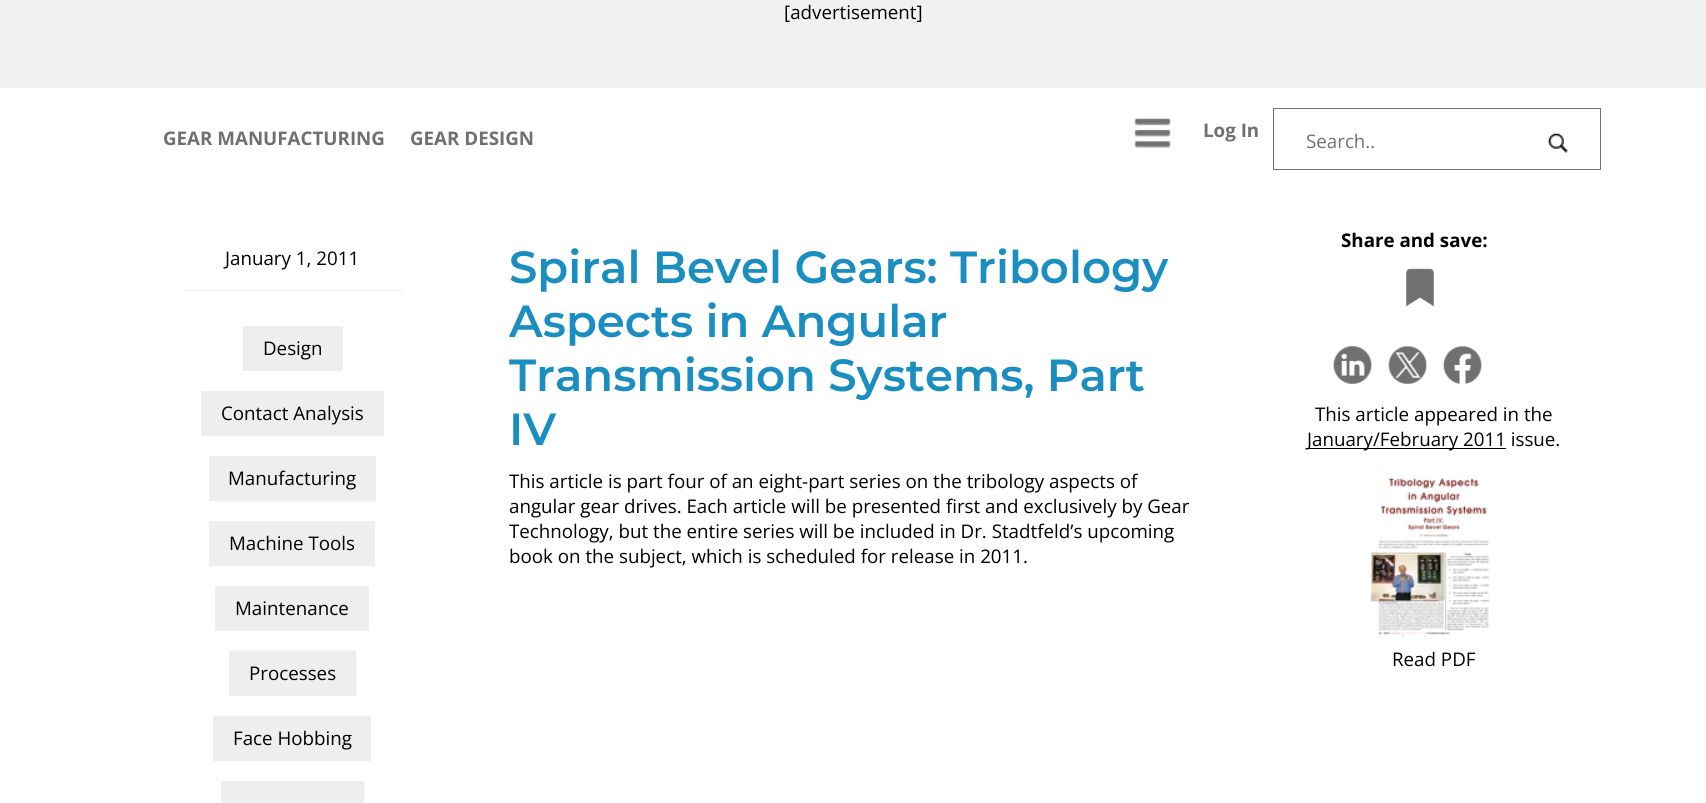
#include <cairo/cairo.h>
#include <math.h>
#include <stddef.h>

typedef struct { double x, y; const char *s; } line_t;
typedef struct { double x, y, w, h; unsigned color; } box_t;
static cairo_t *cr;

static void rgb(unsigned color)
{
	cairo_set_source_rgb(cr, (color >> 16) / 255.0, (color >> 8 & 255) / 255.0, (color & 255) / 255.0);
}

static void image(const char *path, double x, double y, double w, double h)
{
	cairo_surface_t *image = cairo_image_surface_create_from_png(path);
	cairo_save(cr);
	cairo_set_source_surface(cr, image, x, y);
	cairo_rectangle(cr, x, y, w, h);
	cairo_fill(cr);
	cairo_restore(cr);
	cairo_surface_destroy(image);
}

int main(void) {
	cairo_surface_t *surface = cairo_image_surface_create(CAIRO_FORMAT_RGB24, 1706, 803);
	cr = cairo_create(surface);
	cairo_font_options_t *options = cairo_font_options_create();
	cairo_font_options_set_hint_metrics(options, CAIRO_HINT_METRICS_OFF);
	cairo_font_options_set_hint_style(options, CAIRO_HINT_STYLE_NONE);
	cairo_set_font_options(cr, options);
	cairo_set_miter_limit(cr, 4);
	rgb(0xffffff);
	cairo_paint(cr);
	rgb(0xf1f1f1);
	cairo_rectangle(cr, 0, 0, 1706, 88);
	cairo_fill(cr);
	image("img/1.png", 1134, 117, 37, 31);
	cairo_rectangle(cr, 1273.5, 108.5, 327, 61);
	rgb(0x707070);
	cairo_set_line_width(cr, 1);
	cairo_stroke(cr);
	image("img/2.png", 1548, 133, 20, 20);
	{
		static const box_t items[] = {
			{183, 290, 220, 1, 0xeeeeee},
			{243, 326, 100, 45, 0xeeeeee},
			{201, 391, 183, 45, 0xeeeeee},
			{209, 456, 167, 45, 0xeeeeee},
			{209, 521, 166, 45, 0xeeeeee},
			{215, 586, 154, 45, 0xeeeeee},
			{229, 651, 127, 45, 0xeeeeee},
			{213, 716, 158, 45, 0xeeeeee},
			{221, 781, 143, 22, 0xeeeeee},
		};
		for (size_t i = 0; i < sizeof items / sizeof *items; i++) {
			rgb(items[i].color);
			cairo_rectangle(cr, items[i].x, items[i].y, items[i].w, items[i].h);
			cairo_fill(cr);
		}
	}
	image("img/3.png", 1406, 268, 28, 39);
	image("img/4.png", 1333, 346, 39, 38);
	image("img/5.png", 1388, 346, 39, 38);
	image("img/6.png", 1443, 346, 39, 38);
	rgb(0x000000);
	cairo_rectangle(cr, 1308, 448, 198, 1);
	cairo_fill(cr);
	image("img/7.png", 1371, 478, 118, 160);
	cairo_select_font_face(cr, "Open Sans", CAIRO_FONT_SLANT_NORMAL, CAIRO_FONT_WEIGHT_NORMAL);
	cairo_set_font_size(cr, 18.75);
	cairo_move_to(cr, 784, 19);
	cairo_show_text(cr, "[advertisement]");
	cairo_select_font_face(cr, "Open Sans", CAIRO_FONT_SLANT_NORMAL, CAIRO_FONT_WEIGHT_BOLD);
	rgb(0x707070);
	{
		static const line_t items[] = {
			{163, 145, "GEAR MANUFACTURING"},
			{410, 145, "GEAR DESIGN"},
			{1203, 137, "Log In"},
		};
		for (size_t i = 0; i < sizeof items / sizeof *items; i++) {
			cairo_move_to(cr, items[i].x, items[i].y);
			cairo_show_text(cr, items[i].s);
		}
	}
	cairo_select_font_face(cr, "Open Sans", CAIRO_FONT_SLANT_NORMAL, CAIRO_FONT_WEIGHT_NORMAL);
	cairo_move_to(cr, 1306, 148);
	cairo_show_text(cr, "Search..");
	rgb(0x000000);
	{
		static const line_t items[] = {
			{225, 265, "January 1, 2011"},
			{263, 355, "Design"},
			{221, 420, "Contact Analysis"},
			{228, 485, "Manufacturing"},
			{229, 550, "Machine Tools"},
			{235, 615, "Maintenance"},
			{249, 680, "Processes"},
			{233, 745, "Face Hobbing"},
		};
		for (size_t i = 0; i < sizeof items / sizeof *items; i++) {
			cairo_move_to(cr, items[i].x, items[i].y);
			cairo_show_text(cr, items[i].s);
		}
	}
	cairo_select_font_face(cr, "Montserrat SemiBold", CAIRO_FONT_SLANT_NORMAL, CAIRO_FONT_WEIGHT_NORMAL);
	cairo_set_font_size(cr, 45);
	rgb(0x1a8ec1);
	{
		static const line_t items[] = {
			{509, 283, "Spiral Bevel Gears: Tribology"},
			{509, 337, "Aspects in Angular"},
			{509, 391, "Transmission Systems, Part"},
			{509, 445, "IV"},
		};
		for (size_t i = 0; i < sizeof items / sizeof *items; i++) {
			cairo_move_to(cr, items[i].x, items[i].y);
			cairo_show_text(cr, items[i].s);
		}
	}
	cairo_select_font_face(cr, "Open Sans", CAIRO_FONT_SLANT_NORMAL, CAIRO_FONT_WEIGHT_NORMAL);
	cairo_set_font_size(cr, 18.75);
	rgb(0x000000);
	{
		static const line_t items[] = {
			{509, 488, "This article is part four of an eight-part series on the tribology aspects of"},
			{509, 513, "angular gear drives. Each article will be presented first and exclusively by Gear"},
			{509, 538, "Technology, but the entire series will be included in Dr. Stadtfeld’s upcoming"},
			{509, 563, "book on the subject, which is scheduled for release in 2011."},
		};
		for (size_t i = 0; i < sizeof items / sizeof *items; i++) {
			cairo_move_to(cr, items[i].x, items[i].y);
			cairo_show_text(cr, items[i].s);
		}
	}
	cairo_select_font_face(cr, "Open Sans", CAIRO_FONT_SLANT_NORMAL, CAIRO_FONT_WEIGHT_BOLD);
	cairo_move_to(cr, 1341, 247);
	cairo_show_text(cr, "Share and save:");
	cairo_select_font_face(cr, "Open Sans", CAIRO_FONT_SLANT_NORMAL, CAIRO_FONT_WEIGHT_NORMAL);
	{
		static const line_t items[] = {
			{1315, 421, "This article appeared in the"},
			{1307, 446, "January/February 2011 issue."},
			{1392, 666, "Read PDF"},
		};
		for (size_t i = 0; i < sizeof items / sizeof *items; i++) {
			cairo_move_to(cr, items[i].x, items[i].y);
			cairo_show_text(cr, items[i].s);
		}
	}
	cairo_surface_write_to_png(surface, "page.png");
	cairo_font_options_destroy(options);
	cairo_destroy(cr);
	cairo_surface_destroy(surface);
	return 0;
}
